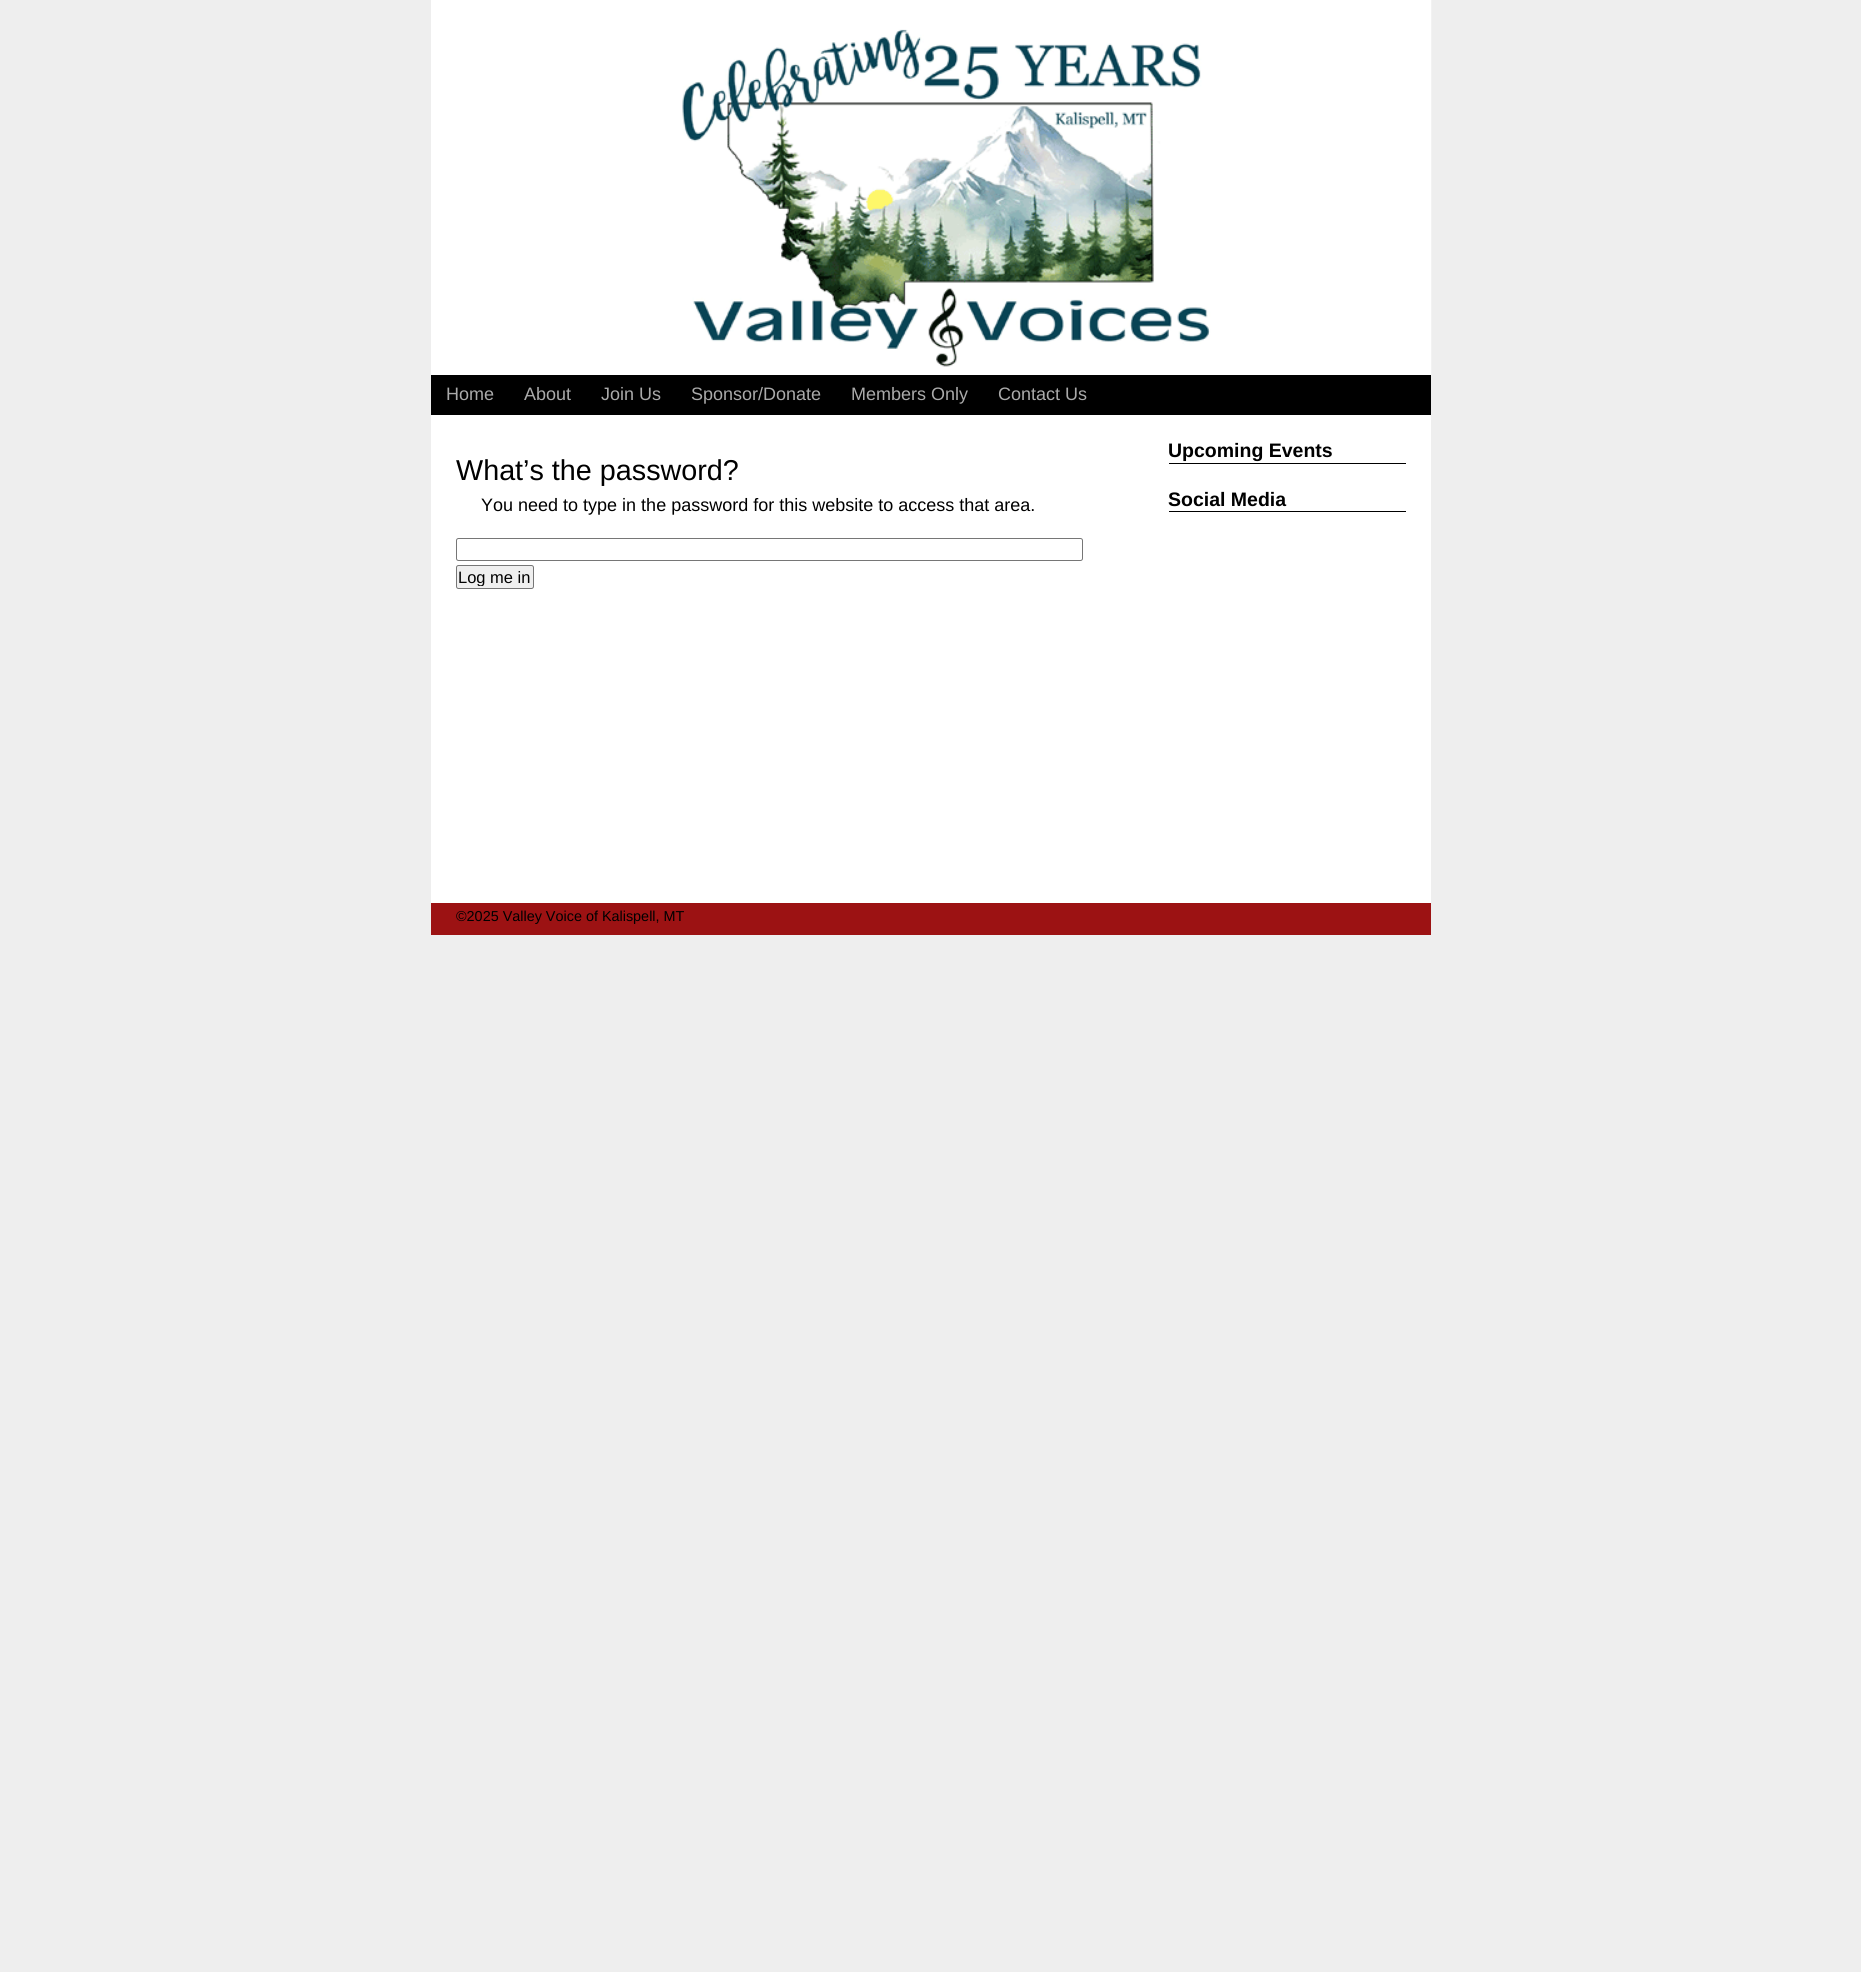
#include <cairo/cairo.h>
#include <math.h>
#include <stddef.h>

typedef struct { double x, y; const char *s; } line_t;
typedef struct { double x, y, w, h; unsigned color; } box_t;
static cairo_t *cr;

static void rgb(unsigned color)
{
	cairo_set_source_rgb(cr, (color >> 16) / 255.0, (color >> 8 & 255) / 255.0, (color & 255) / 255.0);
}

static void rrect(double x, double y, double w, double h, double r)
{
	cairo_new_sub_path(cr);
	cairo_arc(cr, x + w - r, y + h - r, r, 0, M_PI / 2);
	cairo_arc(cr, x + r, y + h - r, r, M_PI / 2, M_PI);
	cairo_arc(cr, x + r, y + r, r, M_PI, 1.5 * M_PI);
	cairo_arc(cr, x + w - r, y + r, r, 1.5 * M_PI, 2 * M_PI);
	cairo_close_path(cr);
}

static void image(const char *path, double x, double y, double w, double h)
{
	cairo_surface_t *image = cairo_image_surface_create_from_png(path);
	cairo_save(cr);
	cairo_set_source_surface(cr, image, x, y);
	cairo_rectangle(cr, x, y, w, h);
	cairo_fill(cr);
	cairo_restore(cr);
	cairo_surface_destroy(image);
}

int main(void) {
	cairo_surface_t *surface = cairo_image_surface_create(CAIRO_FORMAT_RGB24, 1861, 1972);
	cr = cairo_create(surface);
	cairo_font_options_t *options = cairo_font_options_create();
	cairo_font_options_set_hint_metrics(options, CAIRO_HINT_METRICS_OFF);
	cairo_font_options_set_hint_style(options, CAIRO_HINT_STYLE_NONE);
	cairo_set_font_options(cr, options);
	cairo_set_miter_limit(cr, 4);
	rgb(0xeeeeee);
	cairo_paint(cr);
	rgb(0xffffff);
	cairo_rectangle(cr, 431, 0, 1000, 903);
	cairo_fill(cr);
	image("img/1.png", 682, 0, 750, 375);
	rgb(0x000000);
	cairo_rectangle(cr, 431, 375, 1000, 40);
	cairo_fill(cr);
	rrect(456.5, 538.5, 626, 22, 2);
	rgb(0x767676);
	cairo_set_line_width(cr, 1);
	cairo_stroke(cr);
	rgb(0xefefef);
	rrect(456.5, 565.5, 77, 23, 2);
	cairo_fill_preserve(cr);
	rgb(0x767676);
	cairo_stroke(cr);
	{
		static const box_t items[] = {
			{1169, 463, 237, 1, 0x000000},
			{1169, 511, 237, 1, 0x000000},
			{431, 903, 1000, 32, 0x9c1213},
		};
		for (size_t i = 0; i < sizeof items / sizeof *items; i++) {
			rgb(items[i].color);
			cairo_rectangle(cr, items[i].x, items[i].y, items[i].w, items[i].h);
			cairo_fill(cr);
		}
	}
	cairo_select_font_face(cr, "Liberation Sans", CAIRO_FONT_SLANT_NORMAL, CAIRO_FONT_WEIGHT_NORMAL);
	cairo_set_font_size(cr, 18);
	rgb(0xaaaaaa);
	{
		static const line_t items[] = {
			{446, 400, "Home"},
			{524, 400, "About"},
			{601, 400, "Join Us"},
			{691, 400, "Sponsor/Donate"},
			{851, 400, "Members Only"},
			{998, 400, "Contact Us"},
		};
		for (size_t i = 0; i < sizeof items / sizeof *items; i++) {
			cairo_move_to(cr, items[i].x, items[i].y);
			cairo_show_text(cr, items[i].s);
		}
	}
	cairo_set_font_size(cr, 28.75);
	rgb(0x000000);
	cairo_move_to(cr, 456, 480);
	cairo_show_text(cr, "What’s the password?");
	cairo_set_font_size(cr, 18);
	cairo_move_to(cr, 481, 511);
	cairo_show_text(cr, "You need to type in the password for this website to access that area.");
	cairo_save(cr);
	cairo_rectangle(cr, 459, 568, 72, 18);
	cairo_clip(cr);
	cairo_set_font_size(cr, 16.5);
	cairo_move_to(cr, 458, 583);
	cairo_show_text(cr, "Log me in");
	cairo_restore(cr);
	cairo_select_font_face(cr, "Liberation Sans", CAIRO_FONT_SLANT_NORMAL, CAIRO_FONT_WEIGHT_BOLD);
	cairo_set_font_size(cr, 19.5);
	cairo_move_to(cr, 1168, 457);
	cairo_show_text(cr, "Upcoming Events");
	cairo_move_to(cr, 1168, 506);
	cairo_show_text(cr, "Social Media");
	cairo_select_font_face(cr, "Liberation Sans", CAIRO_FONT_SLANT_NORMAL, CAIRO_FONT_WEIGHT_NORMAL);
	cairo_set_font_size(cr, 14.4);
	cairo_move_to(cr, 456, 921);
	cairo_show_text(cr, "©2025 Valley Voice of Kalispell, MT");
	cairo_surface_write_to_png(surface, "page.png");
	cairo_font_options_destroy(options);
	cairo_destroy(cr);
	cairo_surface_destroy(surface);
	return 0;
}
